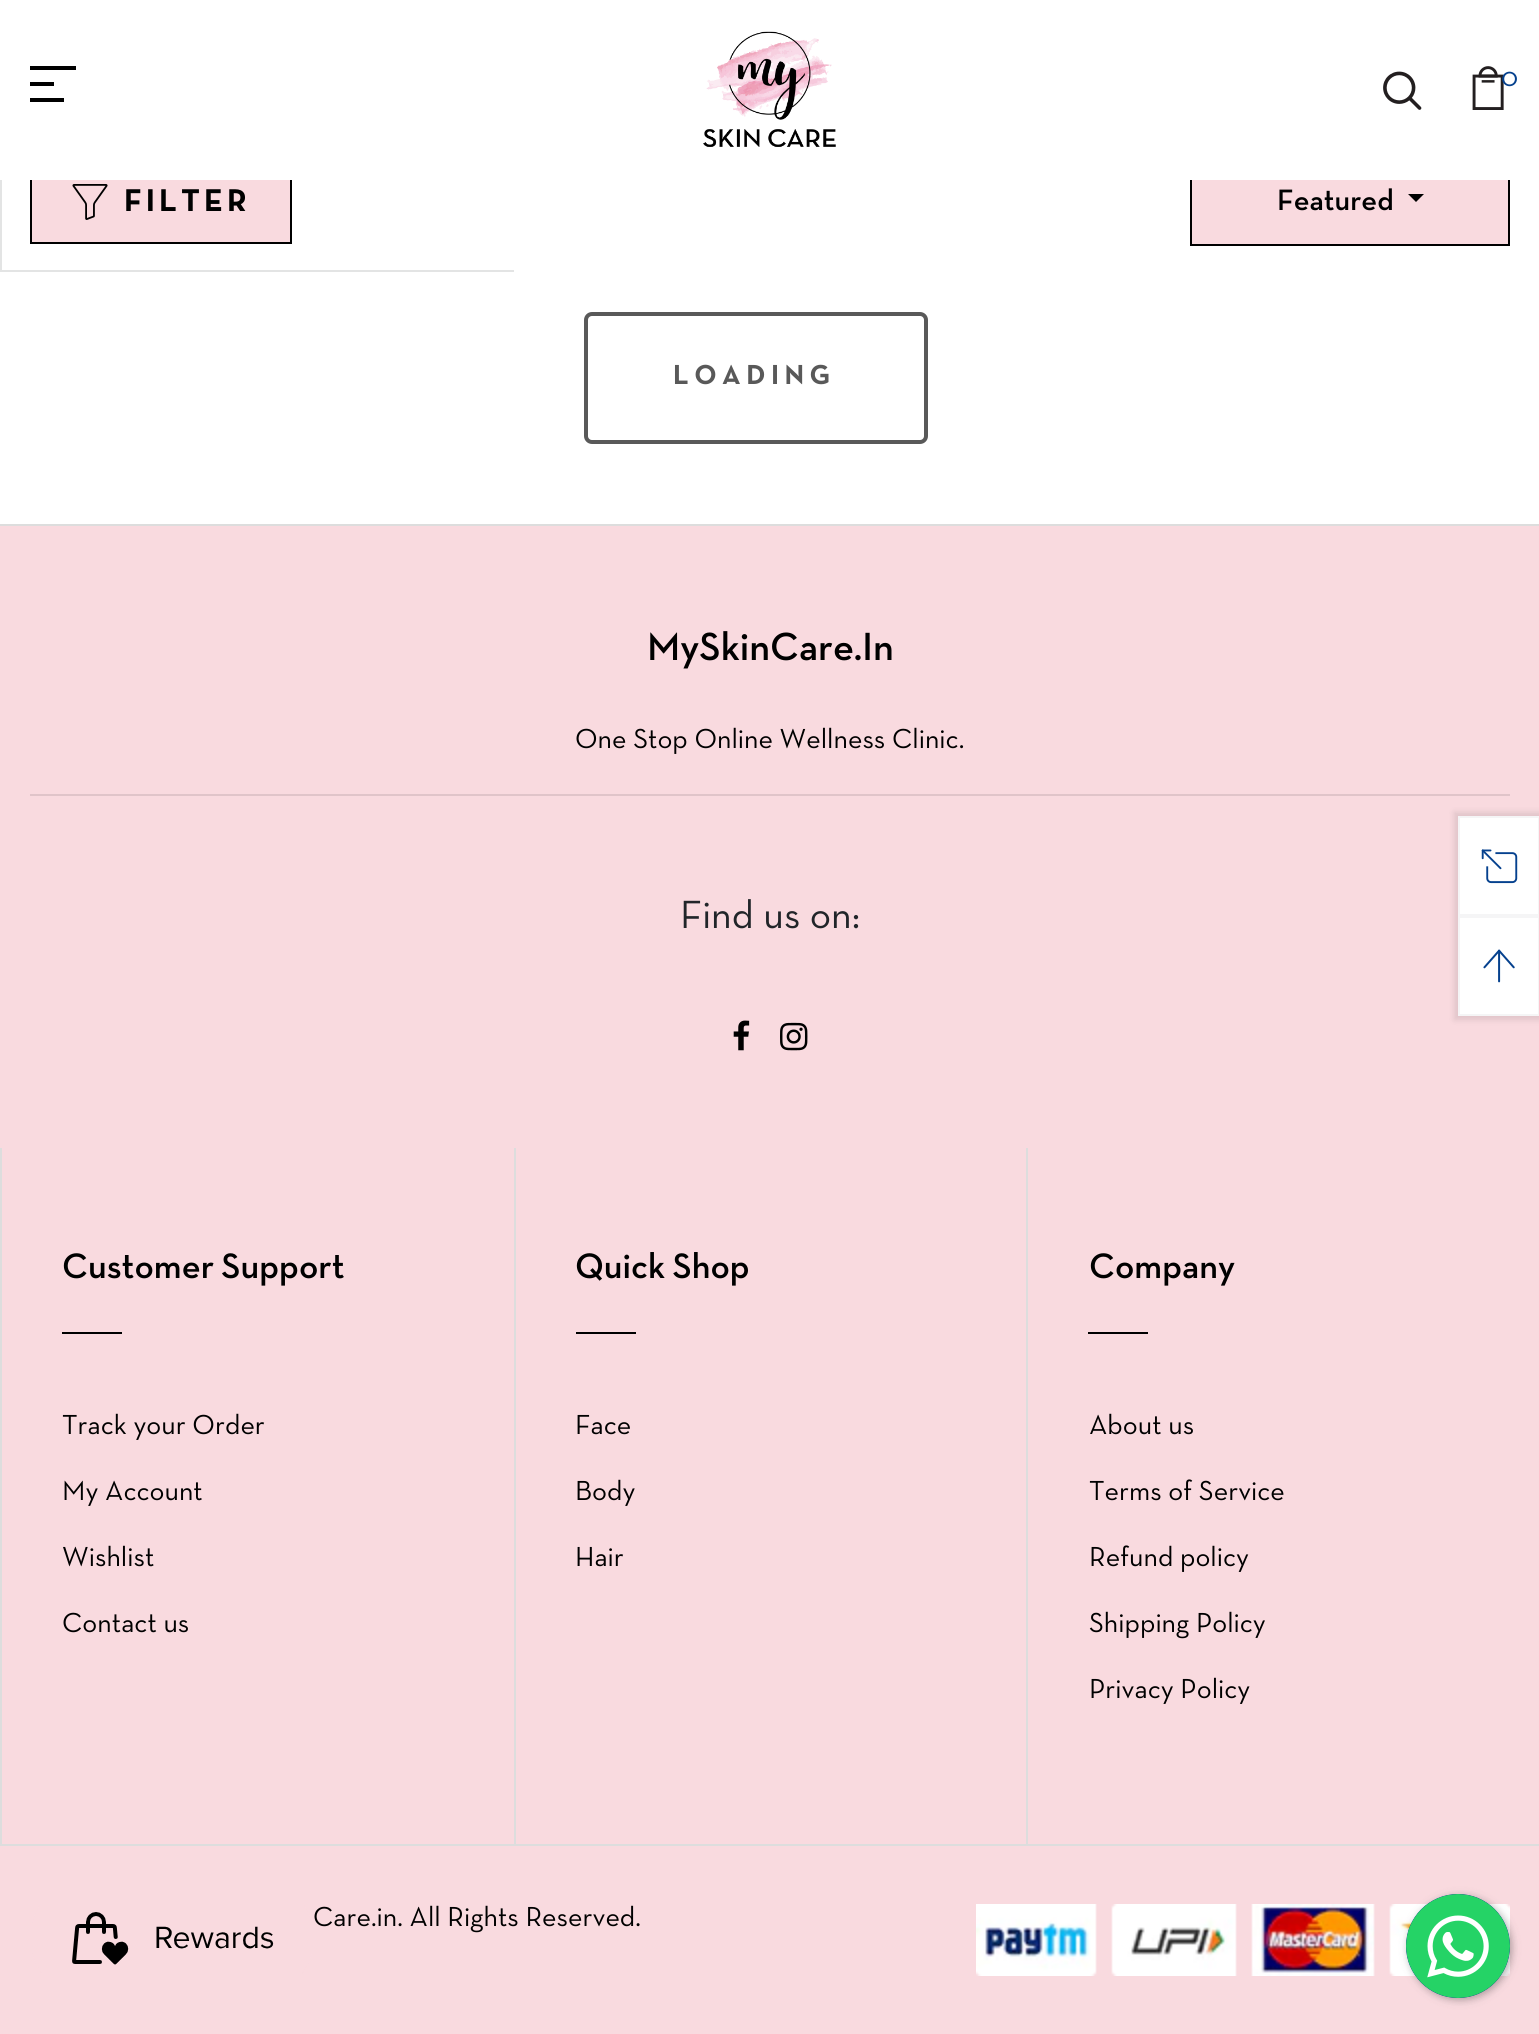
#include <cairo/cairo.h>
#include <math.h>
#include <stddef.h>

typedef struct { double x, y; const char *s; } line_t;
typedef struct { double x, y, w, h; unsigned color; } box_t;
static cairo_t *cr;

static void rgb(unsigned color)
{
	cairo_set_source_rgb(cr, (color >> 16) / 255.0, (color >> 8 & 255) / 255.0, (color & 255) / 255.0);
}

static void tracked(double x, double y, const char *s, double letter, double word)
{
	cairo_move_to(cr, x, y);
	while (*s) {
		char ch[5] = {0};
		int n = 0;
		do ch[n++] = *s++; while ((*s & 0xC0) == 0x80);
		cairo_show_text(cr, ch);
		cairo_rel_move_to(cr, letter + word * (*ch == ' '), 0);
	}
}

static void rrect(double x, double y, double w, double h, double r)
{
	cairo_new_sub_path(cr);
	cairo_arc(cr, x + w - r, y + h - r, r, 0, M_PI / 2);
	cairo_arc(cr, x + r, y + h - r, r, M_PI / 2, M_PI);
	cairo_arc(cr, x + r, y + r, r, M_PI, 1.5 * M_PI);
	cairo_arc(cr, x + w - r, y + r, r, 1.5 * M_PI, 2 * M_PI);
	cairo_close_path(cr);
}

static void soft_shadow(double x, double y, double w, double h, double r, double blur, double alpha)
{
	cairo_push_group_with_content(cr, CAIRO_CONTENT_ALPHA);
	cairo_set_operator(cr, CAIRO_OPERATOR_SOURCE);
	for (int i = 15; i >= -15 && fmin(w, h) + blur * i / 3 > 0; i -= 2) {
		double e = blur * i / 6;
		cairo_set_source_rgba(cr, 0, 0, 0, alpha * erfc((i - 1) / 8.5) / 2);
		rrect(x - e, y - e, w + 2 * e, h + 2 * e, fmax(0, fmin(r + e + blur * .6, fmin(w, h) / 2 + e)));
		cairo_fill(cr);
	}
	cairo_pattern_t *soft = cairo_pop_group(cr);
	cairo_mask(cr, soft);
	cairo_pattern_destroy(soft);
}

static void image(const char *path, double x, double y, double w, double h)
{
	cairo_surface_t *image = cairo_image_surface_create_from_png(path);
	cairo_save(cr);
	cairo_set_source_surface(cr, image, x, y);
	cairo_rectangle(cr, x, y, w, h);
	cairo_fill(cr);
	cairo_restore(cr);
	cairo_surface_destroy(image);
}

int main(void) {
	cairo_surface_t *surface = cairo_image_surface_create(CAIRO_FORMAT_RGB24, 1539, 2034);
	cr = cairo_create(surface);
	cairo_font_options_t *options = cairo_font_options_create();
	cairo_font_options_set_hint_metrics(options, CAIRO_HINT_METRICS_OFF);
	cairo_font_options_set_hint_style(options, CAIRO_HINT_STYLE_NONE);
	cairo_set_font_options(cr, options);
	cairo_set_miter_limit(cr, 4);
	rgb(0xffffff);
	cairo_paint(cr);
	rgb(0xf9dadf);
	cairo_rectangle(cr, 32, 180, 258, 62);
	cairo_fill(cr);
	cairo_rectangle(cr, 31, 161, 260, 82);
	rgb(0x000000);
	cairo_stroke(cr);
	rgb(0xf9dadf);
	cairo_rectangle(cr, 1192, 180, 316, 64);
	cairo_fill(cr);
	cairo_rectangle(cr, 1191, 161, 318, 84);
	rgb(0x000000);
	cairo_stroke(cr);
	{
		static const box_t items[] = {
			{30, 160, 1480, 20, 0xffffff},
			{30, 66, 46, 4, 0x000000},
			{30, 82, 24, 4, 0x000000},
			{30, 98, 34, 4, 0x000000},
		};
		for (size_t i = 0; i < sizeof items / sizeof *items; i++) {
			rgb(items[i].color);
			cairo_rectangle(cr, items[i].x, items[i].y, items[i].w, items[i].h);
			cairo_fill(cr);
		}
	}
	image("img/1.png", 703, 31, 133, 116);
	image("img/2.png", 1383, 71, 39, 39);
	image("img/3.png", 1472, 66, 32, 44);
	image("img/4.png", 72, 184, 36, 36);
	cairo_new_path(cr);
	cairo_move_to(cr, 1408, 194);
	cairo_line_to(cr, 1424, 194);
	cairo_line_to(cr, 1416, 202);
	cairo_close_path(cr);
	cairo_fill(cr);
	rgb(0xe3e4e4);
	cairo_rectangle(cr, 0, 270, 514, 2);
	cairo_fill(cr);
	cairo_rectangle(cr, 0, 180, 2, 92);
	cairo_fill(cr);
	rrect(586, 314, 340, 128, 6);
	rgb(0x595959);
	cairo_set_line_width(cr, 4);
	cairo_stroke(cr);
	{
		static const box_t items[] = {
			{0, 526, 1539, 1318, 0xf9dadf},
			{0, 524, 1539, 2, 0xdddddd},
			{30, 794, 1480, 2, 0xe0c4c9},
		};
		for (size_t i = 0; i < sizeof items / sizeof *items; i++) {
			rgb(items[i].color);
			cairo_rectangle(cr, items[i].x, items[i].y, items[i].w, items[i].h);
			cairo_fill(cr);
		}
	}
	image("img/5.png", 733, 1020, 17, 31);
	image("img/6.png", 780, 1022, 28, 29);
	{
		static const box_t items[] = {
			{0, 1148, 2, 696, 0xdddddd},
			{62, 1332, 60, 2, 0x000000},
			{514, 1148, 2, 696, 0xdddddd},
			{576, 1332, 60, 2, 0x000000},
			{1026, 1148, 2, 696, 0xdddddd},
			{1088, 1332, 60, 2, 0x000000},
			{0, 1846, 1539, 188, 0xf9dadf},
			{0, 1844, 1539, 2, 0xdddddd},
		};
		for (size_t i = 0; i < sizeof items / sizeof *items; i++) {
			rgb(items[i].color);
			cairo_rectangle(cr, items[i].x, items[i].y, items[i].w, items[i].h);
			cairo_fill(cr);
		}
	}
	image("img/7.png", 976, 1904, 534, 72);
	rgb(0x000000);
	soft_shadow(1454, 812, 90, 208, 0, 3, 0.1);
	rgb(0xffffff);
	cairo_rectangle(cr, 1460, 818, 78, 196);
	cairo_fill(cr);
	cairo_rectangle(cr, 1459, 817, 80, 98);
	rgb(0xf5f5f6);
	cairo_set_line_width(cr, 2);
	cairo_stroke(cr);
	image("img/8.png", 1481, 849, 37, 35);
	cairo_rectangle(cr, 1459, 917, 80, 98);
	cairo_stroke(cr);
	image("img/9.png", 1483, 949, 32, 34);
	image("img/10.png", 32, 1905, 280, 70);
	rgb(0x3c3c3c);
	soft_shadow(1408, 1896, 104, 104, 52, 4, 0.4);
	rgb(0x05418e);
	cairo_arc(cr, 1458, 1946, 52, 0, 2 * M_PI);
	cairo_fill(cr);
	image("img/11.png", 1406, 1894, 104, 104);
	cairo_select_font_face(cr, "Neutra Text", CAIRO_FONT_SLANT_NORMAL, CAIRO_FONT_WEIGHT_NORMAL);
	cairo_set_font_size(cr, 28);
	cairo_move_to(cr, 1501, 86);
	cairo_show_text(cr, "0");
	cairo_select_font_face(cr, "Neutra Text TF", CAIRO_FONT_SLANT_NORMAL, CAIRO_FONT_WEIGHT_BOLD);
	cairo_set_font_size(cr, 32);
	rgb(0x000000);
	tracked(124, 211, "FILTER", 4, 0);
	cairo_select_font_face(cr, "Neutra Text TF Medium", CAIRO_FONT_SLANT_NORMAL, CAIRO_FONT_WEIGHT_NORMAL);
	cairo_set_font_size(cr, 30);
	cairo_move_to(cr, 1277, 210);
	cairo_show_text(cr, "Featured");
	cairo_select_font_face(cr, "Neutra Text TF", CAIRO_FONT_SLANT_NORMAL, CAIRO_FONT_WEIGHT_BOLD);
	cairo_set_font_size(cr, 28);
	rgb(0x595959);
	tracked(673, 384, "LOADING", 5.5, 0);
	cairo_select_font_face(cr, "Neutra Text TF Medium", CAIRO_FONT_SLANT_NORMAL, CAIRO_FONT_WEIGHT_NORMAL);
	cairo_set_font_size(cr, 40);
	rgb(0x000000);
	cairo_move_to(cr, 647, 660);
	cairo_show_text(cr, "MySkinCare.In");
	cairo_select_font_face(cr, "Neutra Text", CAIRO_FONT_SLANT_NORMAL, CAIRO_FONT_WEIGHT_NORMAL);
	cairo_set_font_size(cr, 28);
	cairo_move_to(cr, 575, 748);
	cairo_show_text(cr, "One Stop Online Wellness Clinic.");
	cairo_set_font_size(cr, 40);
	rgb(0x212529);
	cairo_move_to(cr, 680, 928);
	cairo_show_text(cr, "Find us on:");
	cairo_select_font_face(cr, "Neutra Text TF Medium", CAIRO_FONT_SLANT_NORMAL, CAIRO_FONT_WEIGHT_NORMAL);
	cairo_set_font_size(cr, 36);
	rgb(0x000000);
	cairo_move_to(cr, 62, 1278);
	cairo_show_text(cr, "Customer Support");
	cairo_select_font_face(cr, "Neutra Text", CAIRO_FONT_SLANT_NORMAL, CAIRO_FONT_WEIGHT_NORMAL);
	cairo_set_font_size(cr, 28);
	{
		static const line_t items[] = {
			{62, 1434, "Track your Order"},
			{62, 1500, "My Account"},
			{62, 1566, "Wishlist"},
			{62, 1632, "Contact us"},
		};
		for (size_t i = 0; i < sizeof items / sizeof *items; i++) {
			cairo_move_to(cr, items[i].x, items[i].y);
			cairo_show_text(cr, items[i].s);
		}
	}
	cairo_select_font_face(cr, "Neutra Text TF Medium", CAIRO_FONT_SLANT_NORMAL, CAIRO_FONT_WEIGHT_NORMAL);
	cairo_set_font_size(cr, 36);
	cairo_move_to(cr, 575, 1278);
	cairo_show_text(cr, "Quick Shop");
	cairo_select_font_face(cr, "Neutra Text", CAIRO_FONT_SLANT_NORMAL, CAIRO_FONT_WEIGHT_NORMAL);
	cairo_set_font_size(cr, 28);
	{
		static const line_t items[] = {
			{575, 1434, "Face"},
			{575, 1500, "Body"},
			{575, 1566, "Hair"},
		};
		for (size_t i = 0; i < sizeof items / sizeof *items; i++) {
			cairo_move_to(cr, items[i].x, items[i].y);
			cairo_show_text(cr, items[i].s);
		}
	}
	cairo_select_font_face(cr, "Neutra Text TF Medium", CAIRO_FONT_SLANT_NORMAL, CAIRO_FONT_WEIGHT_NORMAL);
	cairo_set_font_size(cr, 36);
	cairo_move_to(cr, 1089, 1278);
	cairo_show_text(cr, "Company");
	cairo_select_font_face(cr, "Neutra Text", CAIRO_FONT_SLANT_NORMAL, CAIRO_FONT_WEIGHT_NORMAL);
	cairo_set_font_size(cr, 28);
	{
		static const line_t items[] = {
			{1089, 1434, "About us"},
			{1089, 1500, "Terms of Service"},
			{1089, 1566, "Refund policy"},
			{1089, 1632, "Shipping Policy"},
			{1089, 1698, "Privacy Policy"},
			{313, 1926, "Care.in. All Rights Reserved."},
		};
		for (size_t i = 0; i < sizeof items / sizeof *items; i++) {
			cairo_move_to(cr, items[i].x, items[i].y);
			cairo_show_text(cr, items[i].s);
		}
	}
	cairo_surface_write_to_png(surface, "page.png");
	cairo_font_options_destroy(options);
	cairo_destroy(cr);
	cairo_surface_destroy(surface);
	return 0;
}
